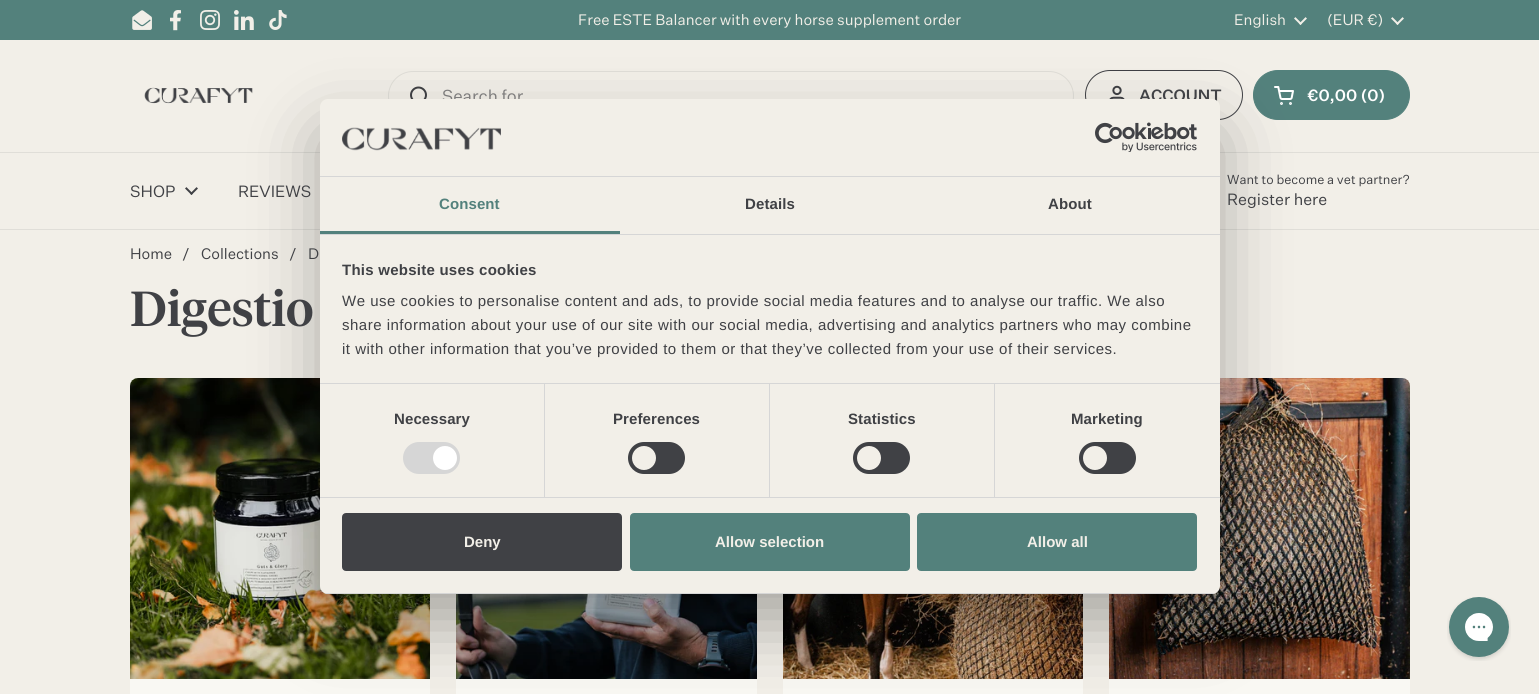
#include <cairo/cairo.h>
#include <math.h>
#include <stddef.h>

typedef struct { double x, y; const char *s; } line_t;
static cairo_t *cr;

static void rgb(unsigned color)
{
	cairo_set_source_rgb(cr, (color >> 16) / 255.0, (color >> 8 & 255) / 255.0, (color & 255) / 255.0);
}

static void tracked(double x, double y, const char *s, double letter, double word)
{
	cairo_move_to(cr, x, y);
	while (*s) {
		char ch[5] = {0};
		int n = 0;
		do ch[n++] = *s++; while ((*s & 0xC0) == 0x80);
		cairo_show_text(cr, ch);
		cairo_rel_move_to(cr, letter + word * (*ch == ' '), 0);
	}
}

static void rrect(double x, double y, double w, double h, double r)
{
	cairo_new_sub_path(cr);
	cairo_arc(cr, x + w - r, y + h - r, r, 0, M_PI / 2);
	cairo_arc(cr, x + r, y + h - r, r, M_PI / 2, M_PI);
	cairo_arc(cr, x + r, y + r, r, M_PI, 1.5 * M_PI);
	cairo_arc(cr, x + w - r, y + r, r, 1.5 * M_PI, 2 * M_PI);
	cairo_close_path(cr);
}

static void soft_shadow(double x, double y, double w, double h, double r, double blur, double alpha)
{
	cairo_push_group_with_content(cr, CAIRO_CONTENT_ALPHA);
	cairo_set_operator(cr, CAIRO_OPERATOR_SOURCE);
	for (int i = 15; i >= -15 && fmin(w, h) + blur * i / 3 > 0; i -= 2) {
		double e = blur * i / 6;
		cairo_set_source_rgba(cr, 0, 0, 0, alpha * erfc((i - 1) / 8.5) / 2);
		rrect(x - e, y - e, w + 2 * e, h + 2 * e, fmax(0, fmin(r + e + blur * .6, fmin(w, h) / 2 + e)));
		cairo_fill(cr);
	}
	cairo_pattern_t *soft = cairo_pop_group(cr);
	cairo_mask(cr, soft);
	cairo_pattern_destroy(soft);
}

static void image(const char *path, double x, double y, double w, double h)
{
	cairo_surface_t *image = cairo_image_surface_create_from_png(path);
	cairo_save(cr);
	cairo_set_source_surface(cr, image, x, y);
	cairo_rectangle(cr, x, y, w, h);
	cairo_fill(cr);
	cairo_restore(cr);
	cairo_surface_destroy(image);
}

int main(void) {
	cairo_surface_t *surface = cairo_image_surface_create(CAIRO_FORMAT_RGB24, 1539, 694);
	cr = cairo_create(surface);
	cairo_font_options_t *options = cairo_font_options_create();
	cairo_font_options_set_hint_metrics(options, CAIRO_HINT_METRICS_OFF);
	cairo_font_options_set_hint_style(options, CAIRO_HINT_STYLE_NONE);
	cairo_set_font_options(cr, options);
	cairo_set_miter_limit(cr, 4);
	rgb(0xf2efe8);
	cairo_paint(cr);
	rgb(0x53817c);
	cairo_rectangle(cr, 0, 0, 1539, 40);
	cairo_fill(cr);
	image("img/1.png", 132, 10, 20, 20);
	image("img/2.png", 170, 10, 11, 21);
	image("img/3.png", 200, 10, 20, 20);
	image("img/4.png", 234, 10, 20, 20);
	image("img/5.png", 269, 10, 18, 20);
	image("img/6.png", 1294, 17, 13, 8);
	image("img/6.png", 1391, 17, 13, 8);
	rgb(0xe0ded8);
	cairo_rectangle(cr, 0, 152, 1539, 1);
	cairo_fill(cr);
	image("img/7.png", 144, 87, 109, 17);
	rrect(388.5, 71.5, 685, 49, 24.5);
	cairo_set_line_width(cr, 1);
	cairo_stroke(cr);
	image("img/8.png", 410, 86, 17, 13);
	rrect(1085.5, 70.5, 157, 49, 24.5);
	rgb(0x404145);
	cairo_stroke(cr);
	image("img/9.png", 1109, 85, 16, 14);
	rgb(0x53817c);
	rrect(1253.5, 70.5, 156, 49, 24.5);
	cairo_fill_preserve(cr);
	cairo_stroke(cr);
	image("img/10.png", 1274, 86, 20, 19);
	rgb(0xe0ded8);
	cairo_rectangle(cr, 0, 229, 1539, 1);
	cairo_fill(cr);
	image("img/11.png", 185, 187, 13, 8);
	rgb(0xf9f8f3);
	rrect(130, 378, 300, 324, 8);
	cairo_fill(cr);
	image("img/12.png", 130, 378, 300, 301);
	cairo_rectangle(cr, 456, 679, 301, 15);
	cairo_fill(cr);
	image("img/13.png", 456, 594, 301, 85);
	cairo_rectangle(cr, 783, 679, 300, 15);
	cairo_fill(cr);
	image("img/14.png", 783, 594, 300, 85);
	rrect(1109, 378, 301, 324, 8);
	cairo_fill(cr);
	image("img/15.png", 1109, 378, 301, 301);
	rgb(0x000000);
	soft_shadow(320, 131, 900, 495, 8, 34, 0.3);
	image("img/18.png", 1447, 597, 64, 64);
	cairo_select_font_face(cr, "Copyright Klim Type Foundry", CAIRO_FONT_SLANT_NORMAL, CAIRO_FONT_WEIGHT_NORMAL);
	cairo_set_font_size(cr, 14.9);
	rgb(0xf2efe8);
	{
		static const line_t items[] = {
			{578, 25, "Free ESTE Balancer with every horse supplement order"},
			{1234, 25, "English"},
			{1327, 25, "(EUR €)"},
		};
		for (size_t i = 0; i < sizeof items / sizeof *items; i++) {
			cairo_move_to(cr, items[i].x, items[i].y);
			cairo_show_text(cr, items[i].s);
		}
	}
	cairo_set_font_size(cr, 17);
	rgb(0x7d7c7c);
	cairo_move_to(cr, 442, 102);
	cairo_show_text(cr, "Search for");
	cairo_select_font_face(cr, "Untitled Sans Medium", CAIRO_FONT_SLANT_NORMAL, CAIRO_FONT_WEIGHT_NORMAL);
	cairo_set_font_size(cr, 16);
	rgb(0x404145);
	cairo_move_to(cr, 1139, 101);
	cairo_show_text(cr, "ACCOUNT");
	rgb(0xffffff);
	cairo_move_to(cr, 1307, 101);
	cairo_show_text(cr, "€0,00 (0)");
	cairo_select_font_face(cr, "Copyright Klim Type Foundry", CAIRO_FONT_SLANT_NORMAL, CAIRO_FONT_WEIGHT_NORMAL);
	rgb(0x404145);
	cairo_move_to(cr, 130, 197);
	cairo_show_text(cr, "SHOP");
	cairo_move_to(cr, 238, 197);
	cairo_show_text(cr, "REVIEWS");
	cairo_set_font_size(cr, 12.75);
	cairo_move_to(cr, 1227, 184);
	cairo_show_text(cr, "Want to become a vet partner?");
	cairo_set_font_size(cr, 16);
	cairo_move_to(cr, 1227, 205);
	cairo_show_text(cr, "Register here");
	cairo_set_font_size(cr, 14.9);
	{
		static const line_t items[] = {
			{130, 259, "Home"},
			{182, 259, "/"},
			{201, 259, "Collections"},
			{289, 259, "/"},
			{308, 259, "D"},
		};
		for (size_t i = 0; i < sizeof items / sizeof *items; i++) {
			cairo_move_to(cr, items[i].x, items[i].y);
			cairo_show_text(cr, items[i].s);
		}
	}
	cairo_select_font_face(cr, "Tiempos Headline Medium", CAIRO_FONT_SLANT_NORMAL, CAIRO_FONT_WEIGHT_NORMAL);
	cairo_set_font_size(cr, 49);
	cairo_move_to(cr, 130, 326);
	cairo_show_text(cr, "Digestio");
	rgb(0xf2efe8);
	rrect(320, 99, 900, 495, 8);
	cairo_fill(cr);
	rgb(0xd6d6d6);
	cairo_rectangle(cr, 320, 176, 900, 1);
	cairo_fill(cr);
	image("img/16.png", 342, 127, 159, 24);
	image("img/17.png", 1095, 122, 102, 30);
	cairo_rectangle(cr, 320, 234, 900, 1);
	cairo_fill(cr);
	rgb(0x53817c);
	cairo_rectangle(cr, 320, 231, 300, 3);
	cairo_fill(cr);
	cairo_select_font_face(cr, "Liberation Sans", CAIRO_FONT_SLANT_NORMAL, CAIRO_FONT_WEIGHT_BOLD);
	cairo_set_font_size(cr, 15);
	tracked(439, 209, "Consent", 0.1, 0);
	rgb(0x404145);
	tracked(745, 209, "Details", 0.1, 0);
	tracked(1048, 209, "About", 0.1, 0);
	rgb(0xd6d6d6);
	cairo_rectangle(cr, 320, 383, 900, 1);
	cairo_fill(cr);
	rgb(0x404145);
	tracked(342, 275, "This website uses cookies", 0.25, 0);
	cairo_select_font_face(cr, "Liberation Sans", CAIRO_FONT_SLANT_NORMAL, CAIRO_FONT_WEIGHT_NORMAL);
	{
		static const line_t items[] = {
			{342, 306, "We use cookies to personalise content and ads, to provide social media features and to analyse our traffic. We also"},
			{342, 330, "share information about your use of our site with our social media, advertising and analytics partners who may combine"},
			{342, 354, "it with other information that you’ve provided to them or that they’ve collected from your use of their services."},
		};
		for (size_t i = 0; i < sizeof items / sizeof *items; i++) {
			tracked(items[i].x, items[i].y, items[i].s, 0.5, 0);
		}
	}
	rgb(0xd6d6d6);
	cairo_rectangle(cr, 320, 497, 900, 1);
	cairo_fill(cr);
	cairo_rectangle(cr, 544, 384, 1, 113);
	cairo_fill(cr);
	cairo_select_font_face(cr, "Liberation Sans", CAIRO_FONT_SLANT_NORMAL, CAIRO_FONT_WEIGHT_BOLD);
	rgb(0x404145);
	tracked(394, 424, "Necessary", 0.1, 0);
	rgb(0xd6d6d6);
	rrect(403, 442, 57, 32, 16);
	cairo_fill(cr);
	rgb(0xffffff);
	cairo_arc(cr, 445, 458, 12, 0, 2 * M_PI);
	cairo_fill(cr);
	rgb(0xd6d6d6);
	cairo_rectangle(cr, 769, 384, 1, 113);
	cairo_fill(cr);
	rgb(0x404145);
	tracked(613, 424, "Preferences", 0.1, 0);
	rrect(628, 442, 57, 32, 16);
	cairo_fill(cr);
	rgb(0xf2efe8);
	cairo_arc(cr, 644, 458, 12, 0, 2 * M_PI);
	cairo_fill(cr);
	rgb(0xd6d6d6);
	cairo_rectangle(cr, 994, 384, 1, 113);
	cairo_fill(cr);
	rgb(0x404145);
	tracked(848, 424, "Statistics", 0.1, 0);
	rrect(853, 442, 57, 32, 16);
	cairo_fill(cr);
	rgb(0xf2efe8);
	cairo_arc(cr, 869, 458, 12, 0, 2 * M_PI);
	cairo_fill(cr);
	rgb(0x404145);
	tracked(1071, 424, "Marketing", 0.1, 0);
	rrect(1079, 442, 57, 32, 16);
	cairo_fill(cr);
	rgb(0xf2efe8);
	cairo_arc(cr, 1095, 458, 12, 0, 2 * M_PI);
	cairo_fill(cr);
	cairo_save(cr);
	rrect(320, 99, 900, 495, 8);
	cairo_clip(cr);
	rgb(0xd6d6d6);
	cairo_rectangle(cr, 320, 593, 900, 1);
	cairo_fill(cr);
	cairo_restore(cr);
	rgb(0x404145);
	rrect(343, 514, 278, 56, 3);
	cairo_fill_preserve(cr);
	cairo_set_line_width(cr, 2);
	cairo_stroke(cr);
	rgb(0xf2efe8);
	cairo_move_to(cr, 464, 547);
	cairo_show_text(cr, "Deny");
	rgb(0x53817c);
	rrect(631, 514, 278, 56, 3);
	cairo_fill_preserve(cr);
	cairo_stroke(cr);
	rgb(0xf2efe8);
	cairo_move_to(cr, 715, 547);
	cairo_show_text(cr, "Allow selection");
	rgb(0x53817c);
	rrect(918, 514, 278, 56, 3);
	cairo_fill_preserve(cr);
	cairo_stroke(cr);
	rgb(0xf2efe8);
	cairo_move_to(cr, 1027, 547);
	cairo_show_text(cr, "Allow all");
	cairo_surface_write_to_png(surface, "page.png");
	cairo_font_options_destroy(options);
	cairo_destroy(cr);
	cairo_surface_destroy(surface);
	return 0;
}
